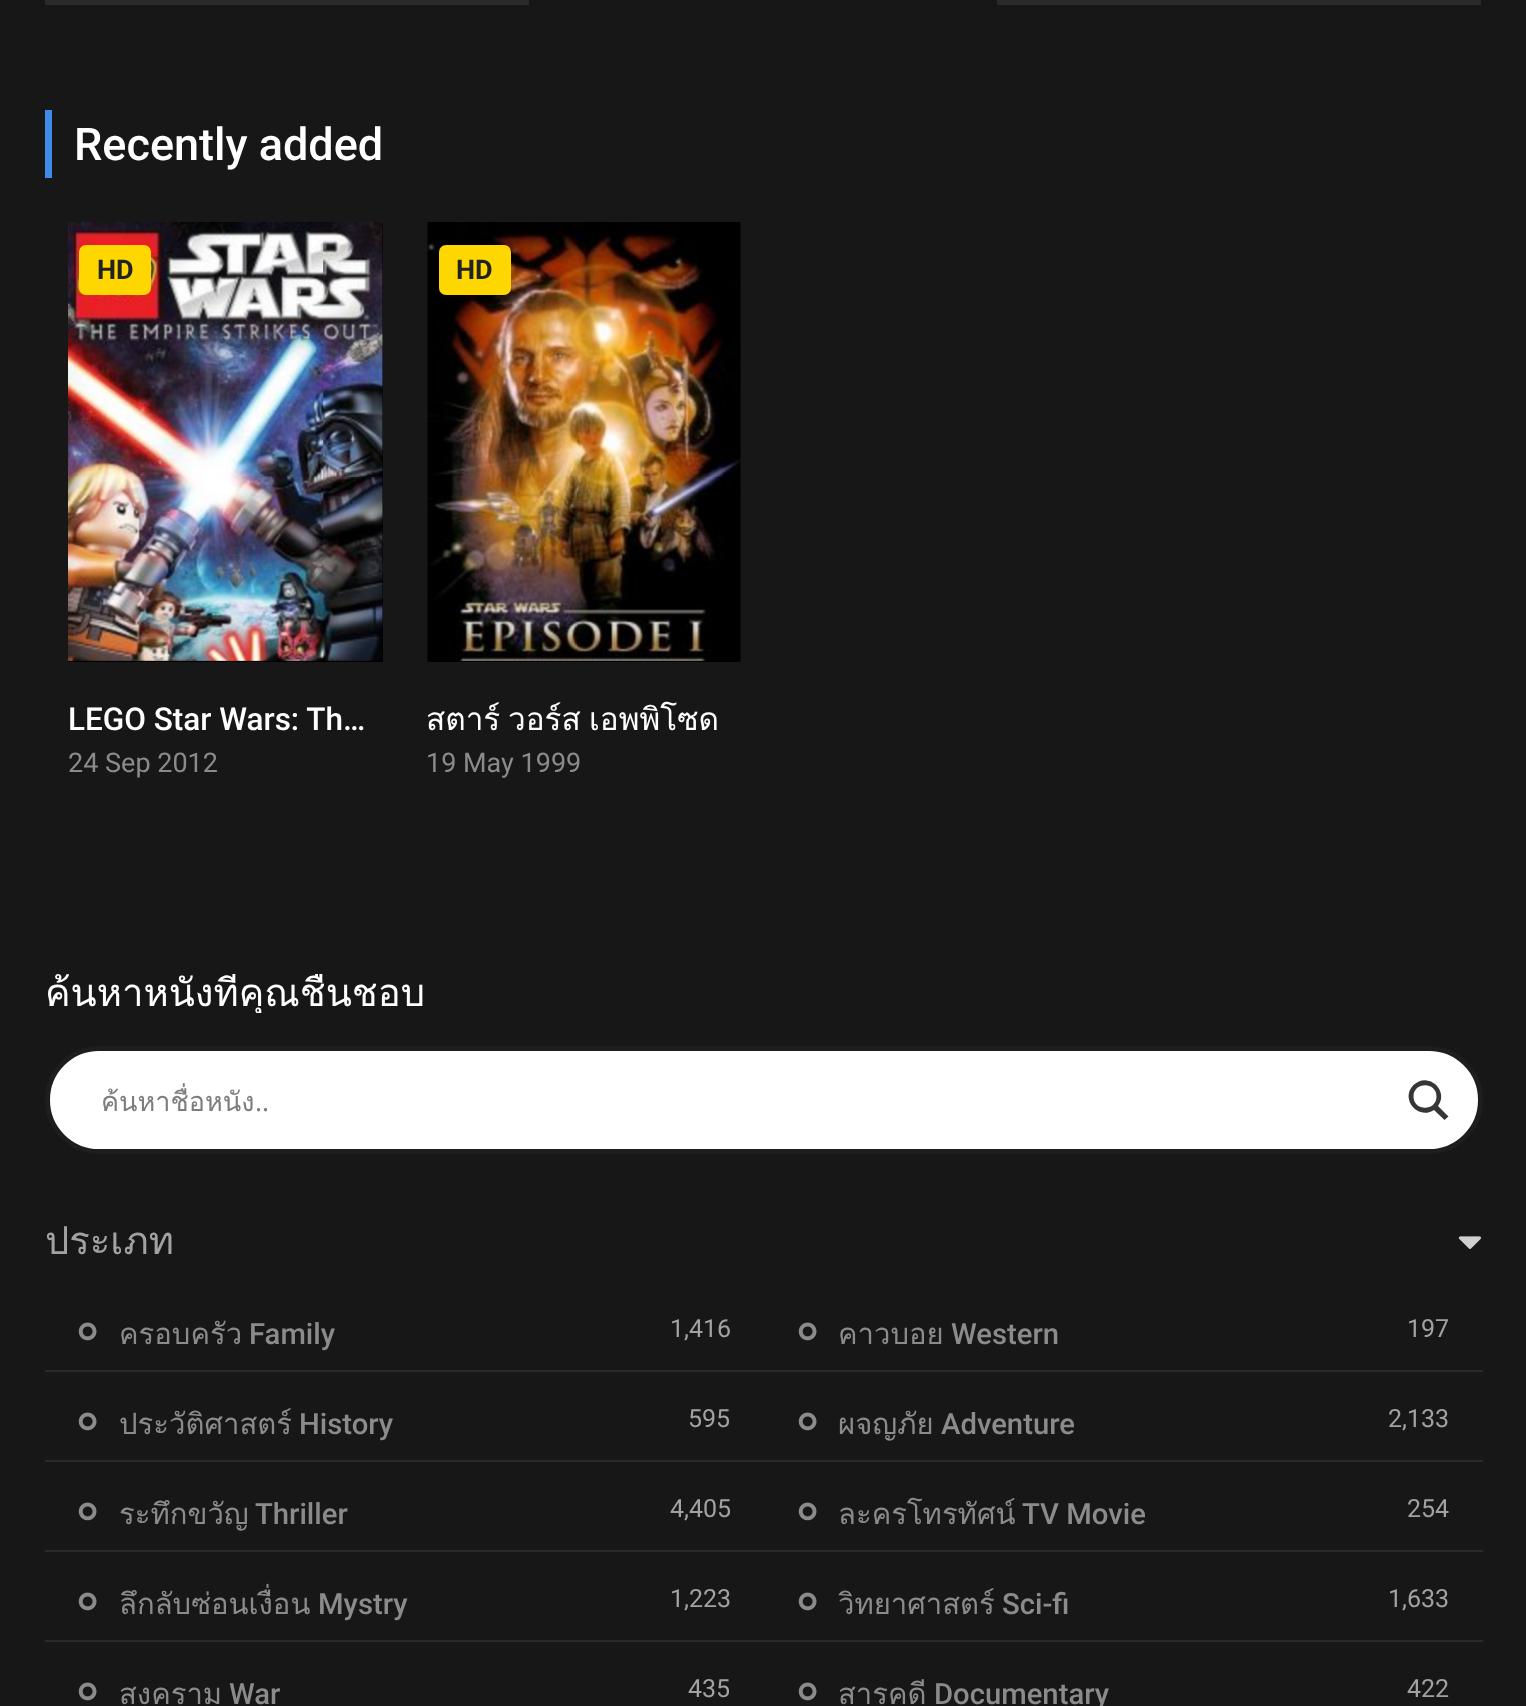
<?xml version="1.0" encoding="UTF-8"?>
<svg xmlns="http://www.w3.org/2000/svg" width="1526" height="1706">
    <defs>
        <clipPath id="clip1"><rect x="45" y="974" width="1438" height="39"/></clipPath>
        <clipPath id="clip2"><rect x="101" y="1080" width="1285" height="43"/></clipPath>
    </defs>
    <rect width="100%" height="100%" fill="#171717"/>
    <rect x="45" y="0" width="484" height="5" fill="#2A2A2A"/>
    <rect x="997" y="0" width="484" height="5" fill="#2A2A2A"/>
    <rect x="45" y="110" width="7" height="68" fill="#408BEA"/>
    <text x="74" y="160" font-family="Roboto" font-size="45" font-weight="500" fill="#FFFFFF">Recently added</text>
    <rect x="68" y="223" width="315" height="439" fill="#000000"/>
    <image x="68" y="222" width="315" height="439" href="img_01.png"/>
    <rect x="79" y="245" width="72" height="50" rx="7" fill="#FED700"/>
    <text x="97" y="279" font-family="Roboto" font-size="27" font-weight="700" fill="#222222">HD</text>
    <text x="68" y="730" font-family="Roboto" font-size="31.5" font-weight="500" fill="#FFFFFF">LEGO Star Wars: Th…</text>
    <text x="68" y="772" font-family="Roboto" font-size="27" fill="#8B8B8B">24 Sep 2012</text>
    <rect x="428" y="223" width="312" height="439" fill="#000000"/>
    <image x="427" y="222" width="314" height="439" href="img_02.png"/>
    <rect x="439" y="245" width="72" height="50" rx="7" fill="#FED700"/>
    <text x="456" y="279" font-family="Roboto" font-size="27" font-weight="700" fill="#222222">HD</text>
    <text x="426" y="730" font-family="Loma" font-size="31.5" fill="#FFFFFF">สตาร์</text>
    <text x="508" y="730" font-family="Loma" font-size="31.5" fill="#FFFFFF">วอร์ส</text>
    <text x="589" y="730" font-family="Loma" font-size="31.5" fill="#FFFFFF">เอพพิโซด</text>
    <text x="426" y="772" font-family="Roboto" font-size="27" fill="#8B8B8B">19 May 1999</text>
    <g clip-path="url(#clip1)">
        <text x="45" y="1006" font-family="Loma" font-size="38.25" fill="#FFFFFF">ค้นหาหนังที่คุณชื่นชอบ</text>
    </g>
    <rect x="47.5" y="1048.5" width="1433" height="103" rx="51.5" fill="#FFFFFF" stroke="#1E1E1E" stroke-width="5"/>
    <g clip-path="url(#clip2)">
        <text x="101" y="1111" font-family="Loma" font-size="27" fill="#7D7D7D">ค้นหาชื่อหนัง</text>
    </g>
    <text x="255" y="1111" font-family="Open Sans" font-size="27" fill="#7D7D7D">..</text>
    <path d="M 1448.5 1116.5 L 1438 1106 C 1449.5 1090.5 1428 1071 1413.5 1085 C 1399.5 1099 1418.5 1120.5 1434 1110 L 1444.5 1120 Z M 1413.5 1096.5 C 1413.5 1081.5 1436.5 1081.5 1436.5 1096.5 C 1436.5 1111.5 1413.5 1111.5 1413.5 1096.5 Z" fill="#363636"/>
    <text x="45" y="1254" font-family="Loma" font-size="38.25" fill="#A2A2A2">ประเภท</text>
    <image x="1458" y="1236" width="23" height="13" href="img_03.png"/>
    <rect x="45" y="1370" width="1438" height="2" fill="#2A2A2A"/>
    <image x="78" y="1322" width="19" height="19" href="img_04.png"/>
    <text x="119" y="1344" font-family="Loma" font-size="29.25" fill="#8B8B8B">ครอบครัว</text>
    <text x="249" y="1344" font-family="Roboto" font-size="29.25" font-weight="500" fill="#8B8B8B">Family</text>
    <text x="670" y="1337" font-family="Roboto" font-size="25" fill="#A2A2A2">1,416</text>
    <image x="798" y="1322" width="19" height="19" href="img_04.png"/>
    <text x="838" y="1344" font-family="Loma" font-size="29.25" fill="#8B8B8B">คาวบอย</text>
    <text x="951" y="1344" font-family="Roboto" font-size="29.25" font-weight="500" fill="#8B8B8B">Western</text>
    <text x="1407" y="1337" font-family="Roboto" font-size="25" fill="#A2A2A2">197</text>
    <rect x="45" y="1460" width="1438" height="2" fill="#2A2A2A"/>
    <image x="78" y="1412" width="19" height="19" href="img_04.png"/>
    <text x="119" y="1434" font-family="Loma" font-size="29.25" fill="#8B8B8B">ประวัติศาสตร์</text>
    <text x="299" y="1434" font-family="Roboto" font-size="29.25" font-weight="500" fill="#8B8B8B">History</text>
    <text x="688" y="1427" font-family="Roboto" font-size="25" fill="#A2A2A2">595</text>
    <image x="798" y="1412" width="19" height="19" href="img_04.png"/>
    <text x="838" y="1434" font-family="Loma" font-size="29.25" fill="#8B8B8B">ผจญภัย</text>
    <text x="941" y="1434" font-family="Roboto" font-size="29.25" font-weight="500" fill="#8B8B8B">Adventure</text>
    <text x="1388" y="1427" font-family="Roboto" font-size="25" fill="#A2A2A2">2,133</text>
    <rect x="45" y="1550" width="1438" height="2" fill="#2A2A2A"/>
    <image x="78" y="1502" width="19" height="19" href="img_04.png"/>
    <text x="119" y="1524" font-family="Loma" font-size="29.25" fill="#8B8B8B">ระทึกขวัญ</text>
    <text x="255" y="1524" font-family="Roboto" font-size="29.25" font-weight="500" fill="#8B8B8B">Thriller</text>
    <text x="670" y="1517" font-family="Roboto" font-size="25" fill="#A2A2A2">4,405</text>
    <image x="798" y="1502" width="19" height="19" href="img_04.png"/>
    <text x="838" y="1524" font-family="Loma" font-size="29.25" fill="#8B8B8B">ละครโทรทัศน์</text>
    <text x="1022" y="1524" font-family="Roboto" font-size="29.25" font-weight="500" fill="#8B8B8B">TV Movie</text>
    <text x="1407" y="1517" font-family="Roboto" font-size="25" fill="#A2A2A2">254</text>
    <rect x="45" y="1640" width="1438" height="2" fill="#2A2A2A"/>
    <image x="78" y="1592" width="19" height="19" href="img_04.png"/>
    <text x="119" y="1614" font-family="Loma" font-size="29.25" fill="#8B8B8B">ลึกลับซ่อนเงื่อน</text>
    <text x="318" y="1614" font-family="Roboto" font-size="29.25" font-weight="500" fill="#8B8B8B">Mystry</text>
    <text x="670" y="1607" font-family="Roboto" font-size="25" fill="#A2A2A2">1,223</text>
    <image x="798" y="1592" width="19" height="19" href="img_04.png"/>
    <text x="838" y="1614" font-family="Loma" font-size="29.25" fill="#8B8B8B">วิทยาศาสตร์</text>
    <text x="1002" y="1614" font-family="Roboto" font-size="29.25" font-weight="500" fill="#8B8B8B">Sci-fi</text>
    <text x="1388" y="1607" font-family="Roboto" font-size="25" fill="#A2A2A2">1,633</text>
    <image x="78" y="1682" width="19" height="19" href="img_04.png"/>
    <text x="119" y="1704" font-family="Loma" font-size="29.25" fill="#8B8B8B">สงคราม</text>
    <text x="229" y="1704" font-family="Roboto" font-size="29.25" font-weight="500" fill="#8B8B8B">War</text>
    <text x="688" y="1697" font-family="Roboto" font-size="25" fill="#A2A2A2">435</text>
    <image x="798" y="1682" width="19" height="19" href="img_04.png"/>
    <text x="838" y="1704" font-family="Loma" font-size="29.25" fill="#8B8B8B">สารคดี</text>
    <text x="934" y="1704" font-family="Roboto" font-size="29.25" font-weight="500" fill="#8B8B8B">Documentary</text>
    <text x="1407" y="1697" font-family="Roboto" font-size="25" fill="#A2A2A2">422</text>
</svg>
